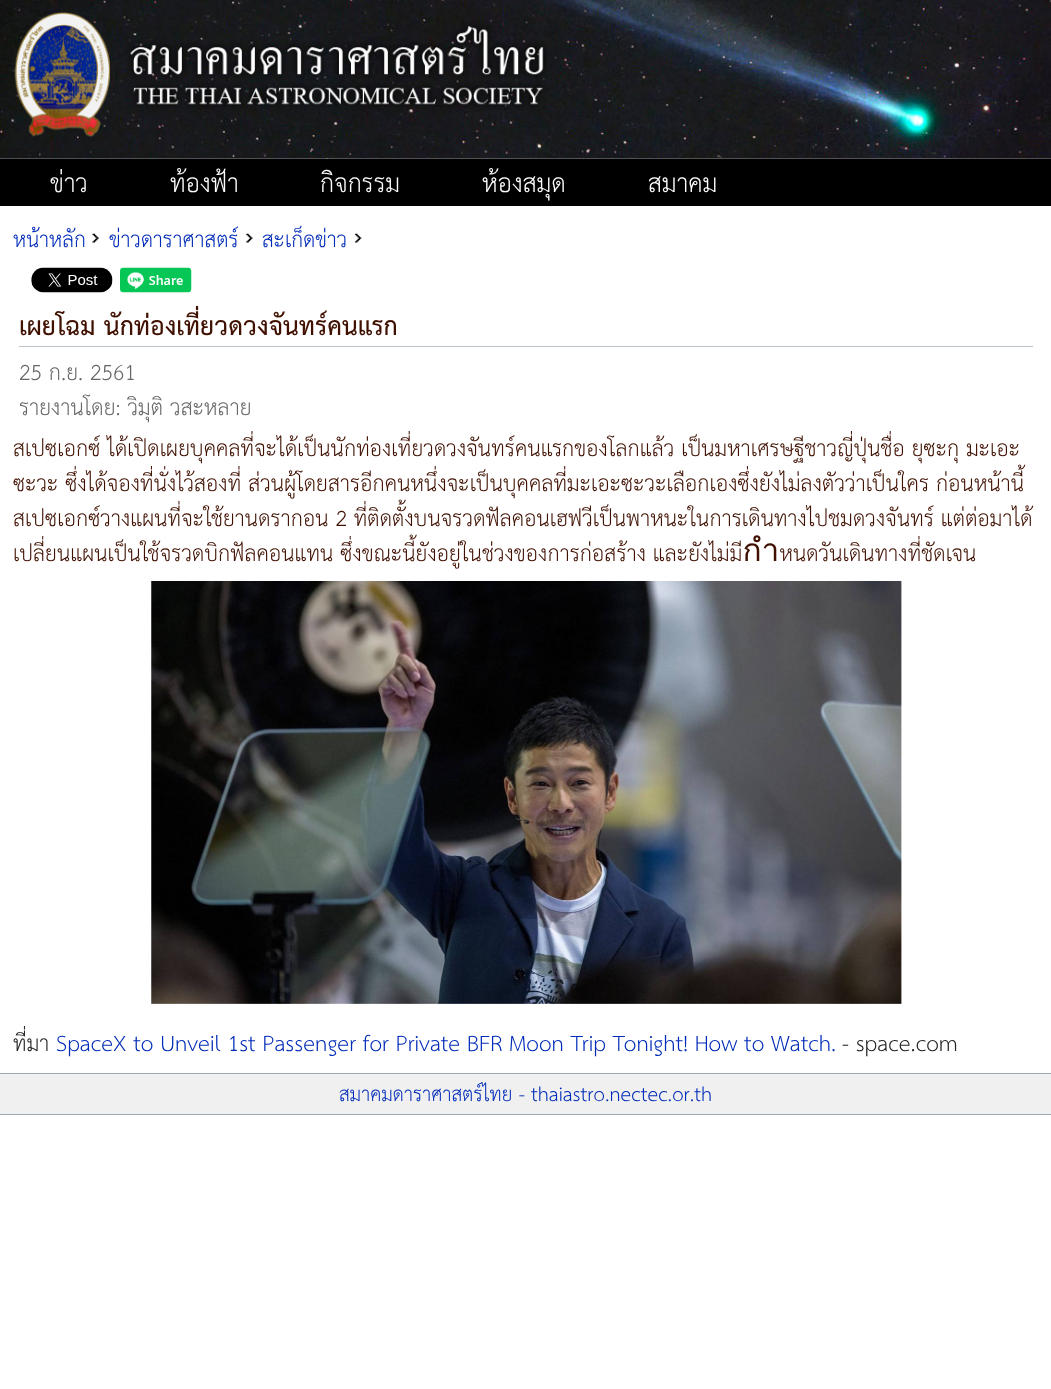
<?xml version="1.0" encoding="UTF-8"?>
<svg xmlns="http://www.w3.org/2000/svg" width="1051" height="1389">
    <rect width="100%" height="100%" fill="#FFFFFF"/>
    <image x="0" y="0" width="1051" height="159" href="img_01.png"/>
    <image x="14" y="12" width="533" height="125" href="img_02.png"/>
    <rect x="0" y="159" width="1051" height="47" fill="#000000"/>
    <text x="50" y="192" font-family="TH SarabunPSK" font-size="36.75" fill="#FFFFFF">ข่าว</text>
    <text x="170" y="192" font-family="TH SarabunPSK" font-size="36.75" fill="#FFFFFF">ท้องฟ้า</text>
    <text x="320" y="192" font-family="TH SarabunPSK" font-size="36.75" fill="#FFFFFF">กิจกรรม</text>
    <text x="482" y="192" font-family="TH SarabunPSK" font-size="36.75" fill="#FFFFFF">ห้องสมุด</text>
    <text x="648" y="192" font-family="TH SarabunPSK" font-size="36.75" fill="#FFFFFF">สมาคม</text>
    <text x="13" y="247" font-family="TH SarabunPSK" font-size="31" fill="#002BB8">หน้าหลัก</text>
    <image x="92" y="233" width="7" height="10" href="img_03.png"/>
    <text x="109" y="247" font-family="TH SarabunPSK" font-size="31" fill="#002BB8">ข่าวดาราศาสตร์</text>
    <image x="246" y="233" width="7" height="10" href="img_04.png"/>
    <text x="262" y="247" font-family="TH SarabunPSK" font-size="31" fill="#002BB8">สะเก็ดข่าว</text>
    <image x="354" y="233" width="8" height="10" href="img_05.png"/>
    <image x="31" y="267" width="82" height="26" href="img_06.png"/>
    <image x="120" y="267" width="72" height="26" href="img_07.png"/>
    <rect x="19" y="346" width="1014" height="1" fill="#BBC3CB"/>
    <text x="19" y="335" font-family="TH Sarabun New" font-size="36.75" font-weight="700" fill="#401000">เผยโฉม นักท่องเที่ยวดวงจันทร์คนแรก</text>
    <text font-family="TH SarabunPSK" font-size="31.7" fill="#676767">
        <tspan x="19" y="380">25 ก.ย. 2561</tspan>
        <tspan x="19" y="415">รายงานโดย: วิมุติ วสะหลาย</tspan>
    </text>
    <text font-family="TH SarabunPSK" font-size="31.7" fill="#401000">
        <tspan x="13" y="456">สเปซเอกซ์ ได้เปิดเผยบุคคลที่จะได้เป็นนักท่องเที่ยวดวงจันทร์คนแรกของโลกแล้ว เป็นมหาเศรษฐีชาวญี่ปุ่นชื่อ ยุซะกุ มะเอะ</tspan>
        <tspan x="13" y="491">ซะวะ ซึ่งได้จองที่นั่งไว้สองที่ ส่วนผู้โดยสารอีกคนหนึ่งจะเป็นบุคคลที่มะเอะซะวะเลือกเองซึ่งยังไม่ลงตัวว่าเป็นใคร ก่อนหน้านี้</tspan>
        <tspan x="13" y="526">สเปซเอกซ์วางแผนที่จะใช้ยานดรากอน 2 ที่ติดตั้งบนจรวดฟัลคอนเฮฟวีเป็นพาหนะในการเดินทางไปชมดวงจันทร์ แต่ต่อมาได้</tspan>
        <tspan x="13" y="561">เปลี่ยนแผนเป็นใช้จรวดบิกฟัลคอนแทน ซึ่งขณะนี้ยังอยู่ในช่วงของการก่อสร้าง และยังไม่มีกำหนดวันเดินทางที่ชัดเจน</tspan>
    </text>
    <image x="151" y="581" width="751" height="423" href="img_08.png"/>
    <text x="13" y="1051" font-family="TH SarabunPSK" font-size="31.7" fill="#222222">ที่มา</text>
    <text x="56" y="1051" font-family="TH SarabunPSK" font-size="31.7" fill="#002BB8">SpaceX to Unveil 1st Passenger for Private BFR Moon Trip Tonight! How to Watch.</text>
    <text x="842" y="1051" font-family="TH SarabunPSK" font-size="31.7" fill="#222222">- space.com</text>
    <rect x="0" y="1074" width="1051" height="40" fill="#F0F0F0"/>
    <rect x="0" y="1073" width="1051" height="1" fill="#9BA9B4"/>
    <rect x="0" y="1114" width="1051" height="1" fill="#9BA9B4"/>
    <text x="339" y="1101" font-family="TH SarabunPSK" font-size="28.5" fill="#002BB8">สมาคมดาราศาสตร์ไทย - thaiastro.nectec.or.th</text>
</svg>
